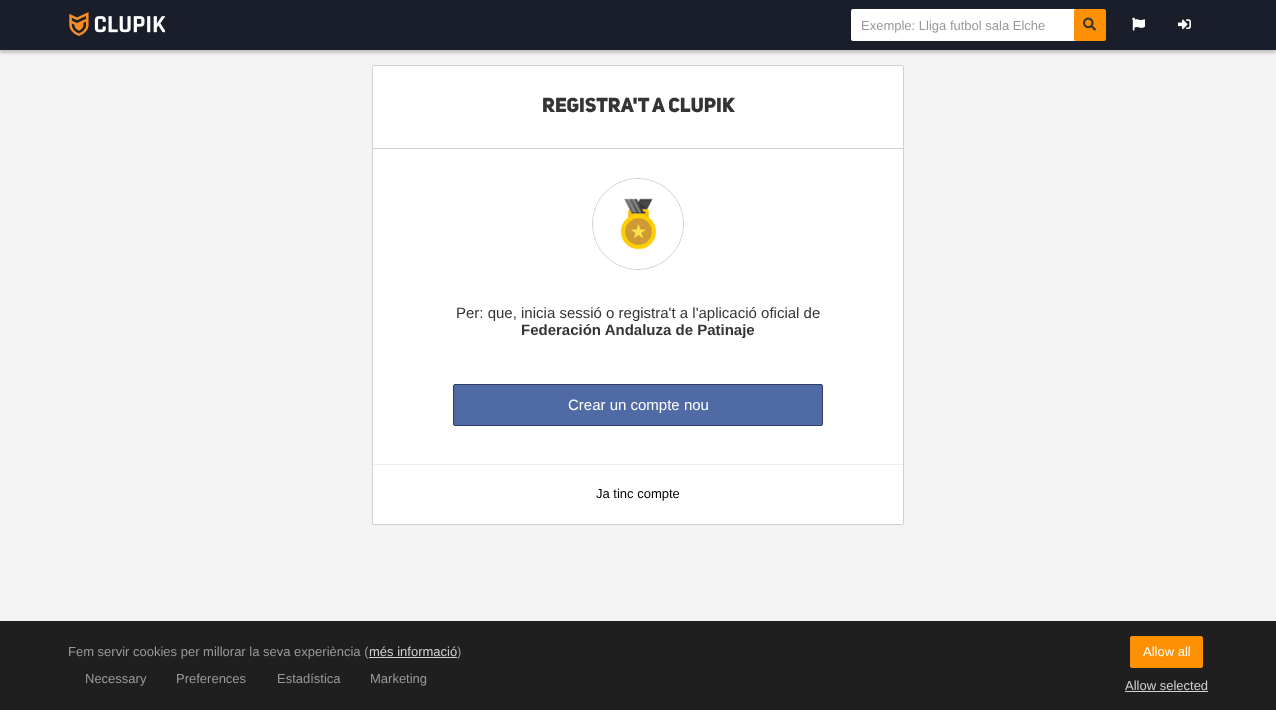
<?xml version="1.0" encoding="UTF-8"?>
<svg xmlns="http://www.w3.org/2000/svg" width="1276" height="710">
    <defs>
        <filter id="blur1" x="-50%" y="-200%" width="200%" height="500%"><feGaussianBlur stdDeviation="1.5"/></filter>
    </defs>
    <rect width="100%" height="100%" fill="#F3F3F3"/>
    <rect x="0" y="3" width="1276" height="50" fill="#000000" fill-opacity="0.2" filter="url(#blur1)"/>
    <rect x="0" y="0" width="1276" height="50" fill="#1A1E2A"/>
    <image x="69" y="12" width="96" height="24" href="img_01.png"/>
    <rect x="851" y="9" width="250" height="32" rx="2" fill="#FFFFFF"/>
    <text x="861" y="30" font-family="Liberation Sans" font-size="13" fill="#999999">Exemple: Lliga futbol sala Elche</text>
    <rect x="1074" y="9" width="32" height="32" rx="2" fill="#FE9003"/>
    <image x="1083" y="17" width="13" height="14" href="img_02.png"/>
    <image x="1132" y="17" width="13" height="14" href="img_03.png"/>
    <image x="1178" y="19" width="13" height="11" href="img_04.png"/>
    <rect x="372.5" y="65.5" width="531" height="459" rx="1.5" fill="#FFFFFF" stroke="#D1D1D1"/>
    <rect x="373" y="148" width="530" height="1" fill="#D1D1D1"/>
    <text x="542" y="112" font-family="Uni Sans" font-size="20" font-weight="900" fill="#343434">Registra't a Clupik</text>
    <circle cx="638" cy="224" r="45.5" fill="none" stroke="#CCCCCC"/>
    <image x="593" y="179" width="90" height="90" href="img_05.png"/>
    <text x="456" y="318" font-family="Liberation Sans" font-size="15" fill="#343434">Per: que, inicia sessió o registra't a l'aplicació oficial de</text>
    <text x="521" y="335" font-family="Liberation Sans" font-size="15" font-weight="700" fill="#343434">Federación Andaluza de Patinaje</text>
    <rect x="453.5" y="384.5" width="369" height="41" rx="1.5" fill="#506AA6" stroke="#2F3E61"/>
    <text x="568" y="410" font-family="Liberation Sans" font-size="15" fill="#FFFFFF">Crear un compte nou</text>
    <path d="M 373 464 L 374 465 H 902 L 903 464 Z" fill="#EEEEEE"/>
    <text x="596" y="498" font-family="Liberation Sans" font-size="13" fill="#000000">Ja tinc compte</text>
    <rect x="0" y="621" width="1276" height="89" fill="#1F1F1F"/>
    <text x="68" y="656" font-family="Liberation Sans" font-size="13" fill="#999999">Fem servir cookies per millorar la seva experiència (</text>
    <text x="369" y="656" font-family="Liberation Sans" font-size="13" fill="#D1D1D1">més informació</text>
    <rect x="369" y="657" width="88" height="1" fill="#D1D1D1"/>
    <text x="457" y="656" font-family="Liberation Sans" font-size="13" fill="#999999">)</text>
    <text x="85" y="683" font-family="Liberation Sans" font-size="13" fill="#999999">Necessary</text>
    <text x="176" y="683" font-family="Liberation Sans" font-size="13" fill="#999999">Preferences</text>
    <text x="277" y="683" font-family="Liberation Sans" font-size="13" fill="#999999">Estadística</text>
    <text x="370" y="683" font-family="Liberation Sans" font-size="13" fill="#999999">Marketing</text>
    <rect x="1130.5" y="636.5" width="72" height="31" rx="1.5" fill="#FE9003" stroke="#FE9003"/>
    <text x="1143" y="656" font-family="Liberation Sans" font-size="13" fill="#FFFFFF">Allow all</text>
    <text x="1125" y="690" font-family="Liberation Sans" font-size="13" fill="#D1D1D1">Allow selected</text>
    <rect x="1125" y="691" width="83" height="1" fill="#D1D1D1"/>
</svg>
